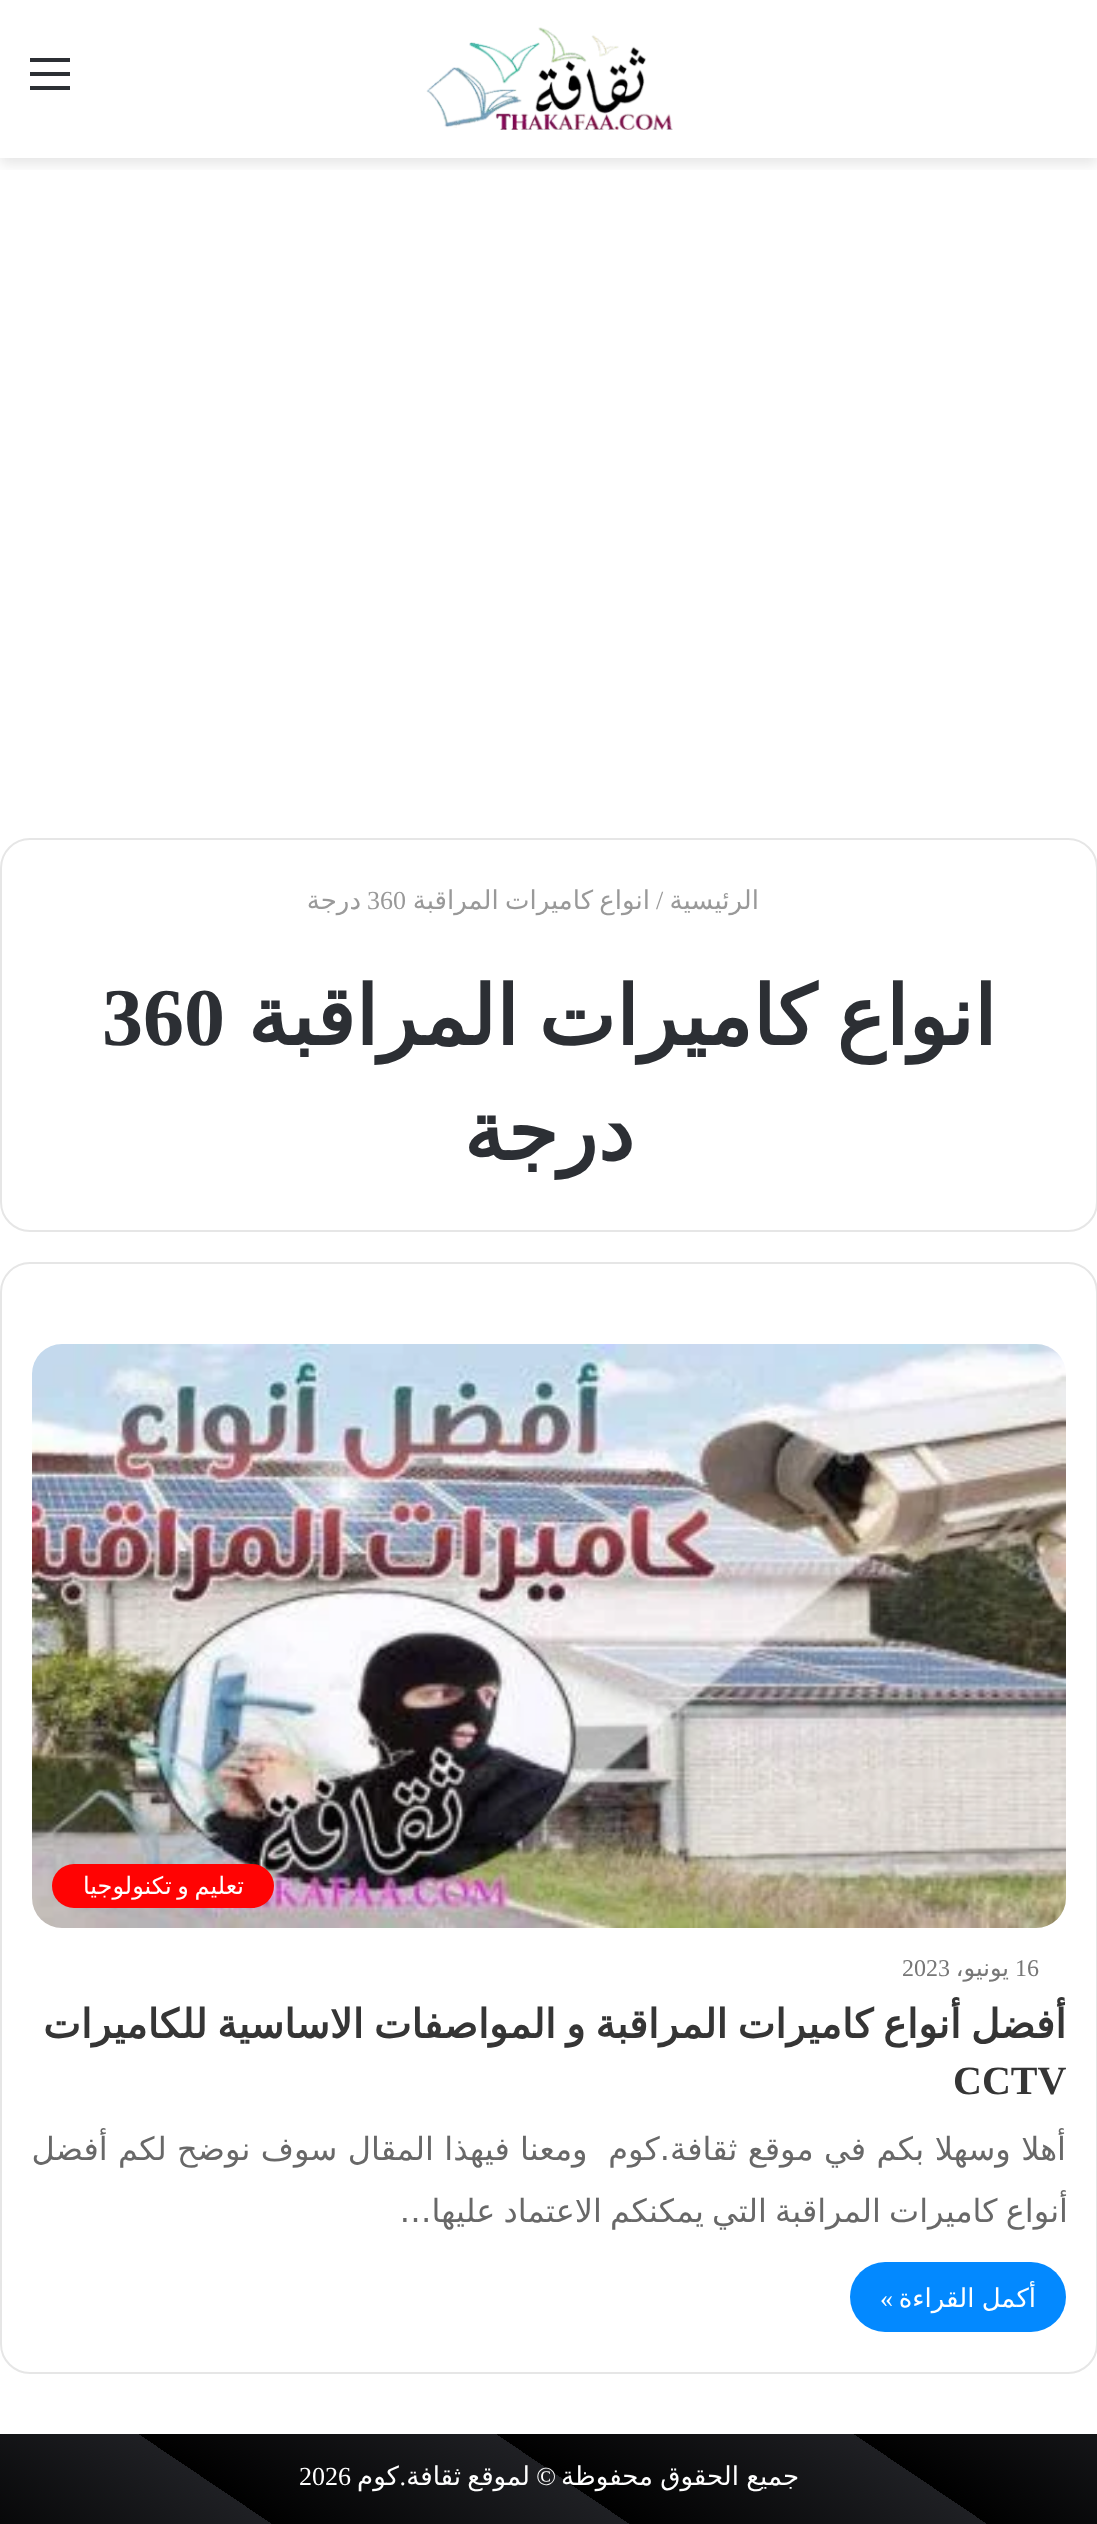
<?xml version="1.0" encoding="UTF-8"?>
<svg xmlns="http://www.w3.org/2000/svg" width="1097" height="2524">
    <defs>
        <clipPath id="clip1"><rect x="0" y="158" width="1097" height="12"/></clipPath>
        <filter id="blur1" x="-50%" y="-200%" width="200%" height="500%"><feGaussianBlur stdDeviation="7"/></filter>
        <linearGradient id="g1" gradientUnits="userSpaceOnUse" x1="343" y1="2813" x2="790" y2="2150"><stop offset="0" stop-color="#000000"/><stop offset="0.25" stop-color="#1F2024"/><stop offset="0.25" stop-color="#000000"/><stop offset="0.5" stop-color="#1F2024"/><stop offset="0.5" stop-color="#000000"/><stop offset="0.75" stop-color="#1F2024"/><stop offset="0.75" stop-color="#000000"/><stop offset="1" stop-color="#1F2024"/></linearGradient>
    </defs>
    <rect width="100%" height="100%" fill="#FFFFFF"/>
    <g clip-path="url(#clip1)">
        <rect x="0" y="-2" width="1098" height="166" fill="#000000" fill-opacity="0.1" filter="url(#blur1)"/>
    </g>
    <image x="426" y="27" width="247" height="103" href="img_01.png"/>
    <rect x="30" y="72" width="40" height="4" fill="#2C2F34"/>
    <rect x="30" y="58" width="40" height="4" fill="#2C2F34"/>
    <rect x="30" y="86" width="40" height="4" fill="#2C2F34"/>
    <rect x="1" y="839" width="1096" height="392" rx="29" fill="none" stroke="#E6E6E6" stroke-width="2"/>
    <text x="759" y="909" font-family="DejaVu Sans" font-size="26" direction="rtl" fill="#999999">الرئيسية</text>
    <text x="656" y="909" font-family="Liberation Serif" font-size="26" fill="#999999">/</text>
    <text x="650" y="909" word-spacing="-2" font-family="DejaVu Sans" font-size="26" direction="rtl" fill="#999999">انواع كاميرات المراقبة</text>
    <text x="367" y="909" font-family="Liberation Serif" font-size="26" fill="#999999">360</text>
    <text x="361" y="909" font-family="DejaVu Sans" font-size="26" direction="rtl" fill="#999999">درجة</text>
    <text x="996" y="1045" word-spacing="-6" font-family="DejaVu Sans" font-size="82" font-weight="700" direction="rtl" fill="#2C2F34">انواع كاميرات المراقبة</text>
    <text x="102" y="1045" font-family="Liberation Serif" font-size="82" font-weight="700" fill="#2C2F34">360</text>
    <text x="634" y="1160" font-family="DejaVu Sans" font-size="82" font-weight="700" direction="rtl" fill="#2C2F34">درجة</text>
    <rect x="1" y="1263" width="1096" height="1110" rx="29" fill="none" stroke="#E6E6E6" stroke-width="2"/>
    <image x="32" y="1344" width="1034" height="584" href="img_02.png"/>
    <rect x="52" y="1864" width="222" height="44" rx="22" fill="#FF0303"/>
    <text x="244" y="1894" word-spacing="-2" font-family="DejaVu Sans" font-size="24" direction="rtl" fill="#FFFFFF">تعليم و تكنولوجيا</text>
    <text x="1015" y="1976" font-family="Liberation Serif" font-size="24" fill="#777777">16</text>
    <text x="1009" y="1976" font-family="DejaVu Sans" font-size="24" direction="rtl" fill="#777777">يونيو،</text>
    <text x="902" y="1976" font-family="Liberation Serif" font-size="24" fill="#777777">2023</text>
    <text x="1066" y="2038" word-spacing="-2.75" font-family="DejaVu Sans" font-size="40" font-weight="700" direction="rtl" fill="#353535">أفضل أنواع كاميرات المراقبة و المواصفات الاساسية للكاميرات</text>
    <text x="953" y="2094" font-family="Liberation Serif" font-size="40" font-weight="700" fill="#353535">CCTV</text>
    <text x="1066" y="2160" word-spacing="0.2" font-family="DejaVu Sans" font-size="32" direction="rtl" fill="#686868" xml:space="preserve">أهلا وسهلا بكم في موقع ثقافة.كوم  ومعنا فيهذا المقال سوف نوضح لكم أفضل</text>
    <text x="1068" y="2222" word-spacing="-2" font-family="DejaVu Sans" font-size="32" direction="rtl" fill="#686868">أنواع كاميرات المراقبة التي يمكنكم الاعتماد عليها…</text>
    <rect x="850" y="2262" width="216" height="70" rx="35" fill="#0389FF"/>
    <text x="1036" y="2307" word-spacing="-1" font-family="DejaVu Sans" font-size="26" direction="rtl" fill="#FFFFFF">أكمل القراءة</text>
    <text x="893" y="2307" font-family="Liberation Serif" font-size="26" direction="rtl" fill="#FFFFFF">»</text>
    <rect x="0" y="2434" width="1097" height="90" fill="url(#g1)"/>
    <text x="799" y="2485" word-spacing="-1" font-family="DejaVu Sans" font-size="26" direction="rtl" fill="#FFFFFF">جميع الحقوق محفوظة</text>
    <text x="556" y="2485" font-family="Liberation Serif" font-size="26" direction="rtl" fill="#FFFFFF">©</text>
    <text x="530" y="2485" font-family="DejaVu Sans" font-size="26" direction="rtl" fill="#FFFFFF">لموقع</text>
    <text x="461" y="2485" font-family="DejaVu Sans" font-size="26" direction="rtl" fill="#FFFFFF">ثقافة</text>
    <text x="406" y="2485" font-family="Liberation Serif" font-size="26" direction="rtl" fill="#FFFFFF">.</text>
    <text x="399" y="2485" font-family="DejaVu Sans" font-size="26" direction="rtl" fill="#FFFFFF">كوم</text>
    <text x="299" y="2485" font-family="Liberation Serif" font-size="26" fill="#FFFFFF">2026</text>
</svg>
